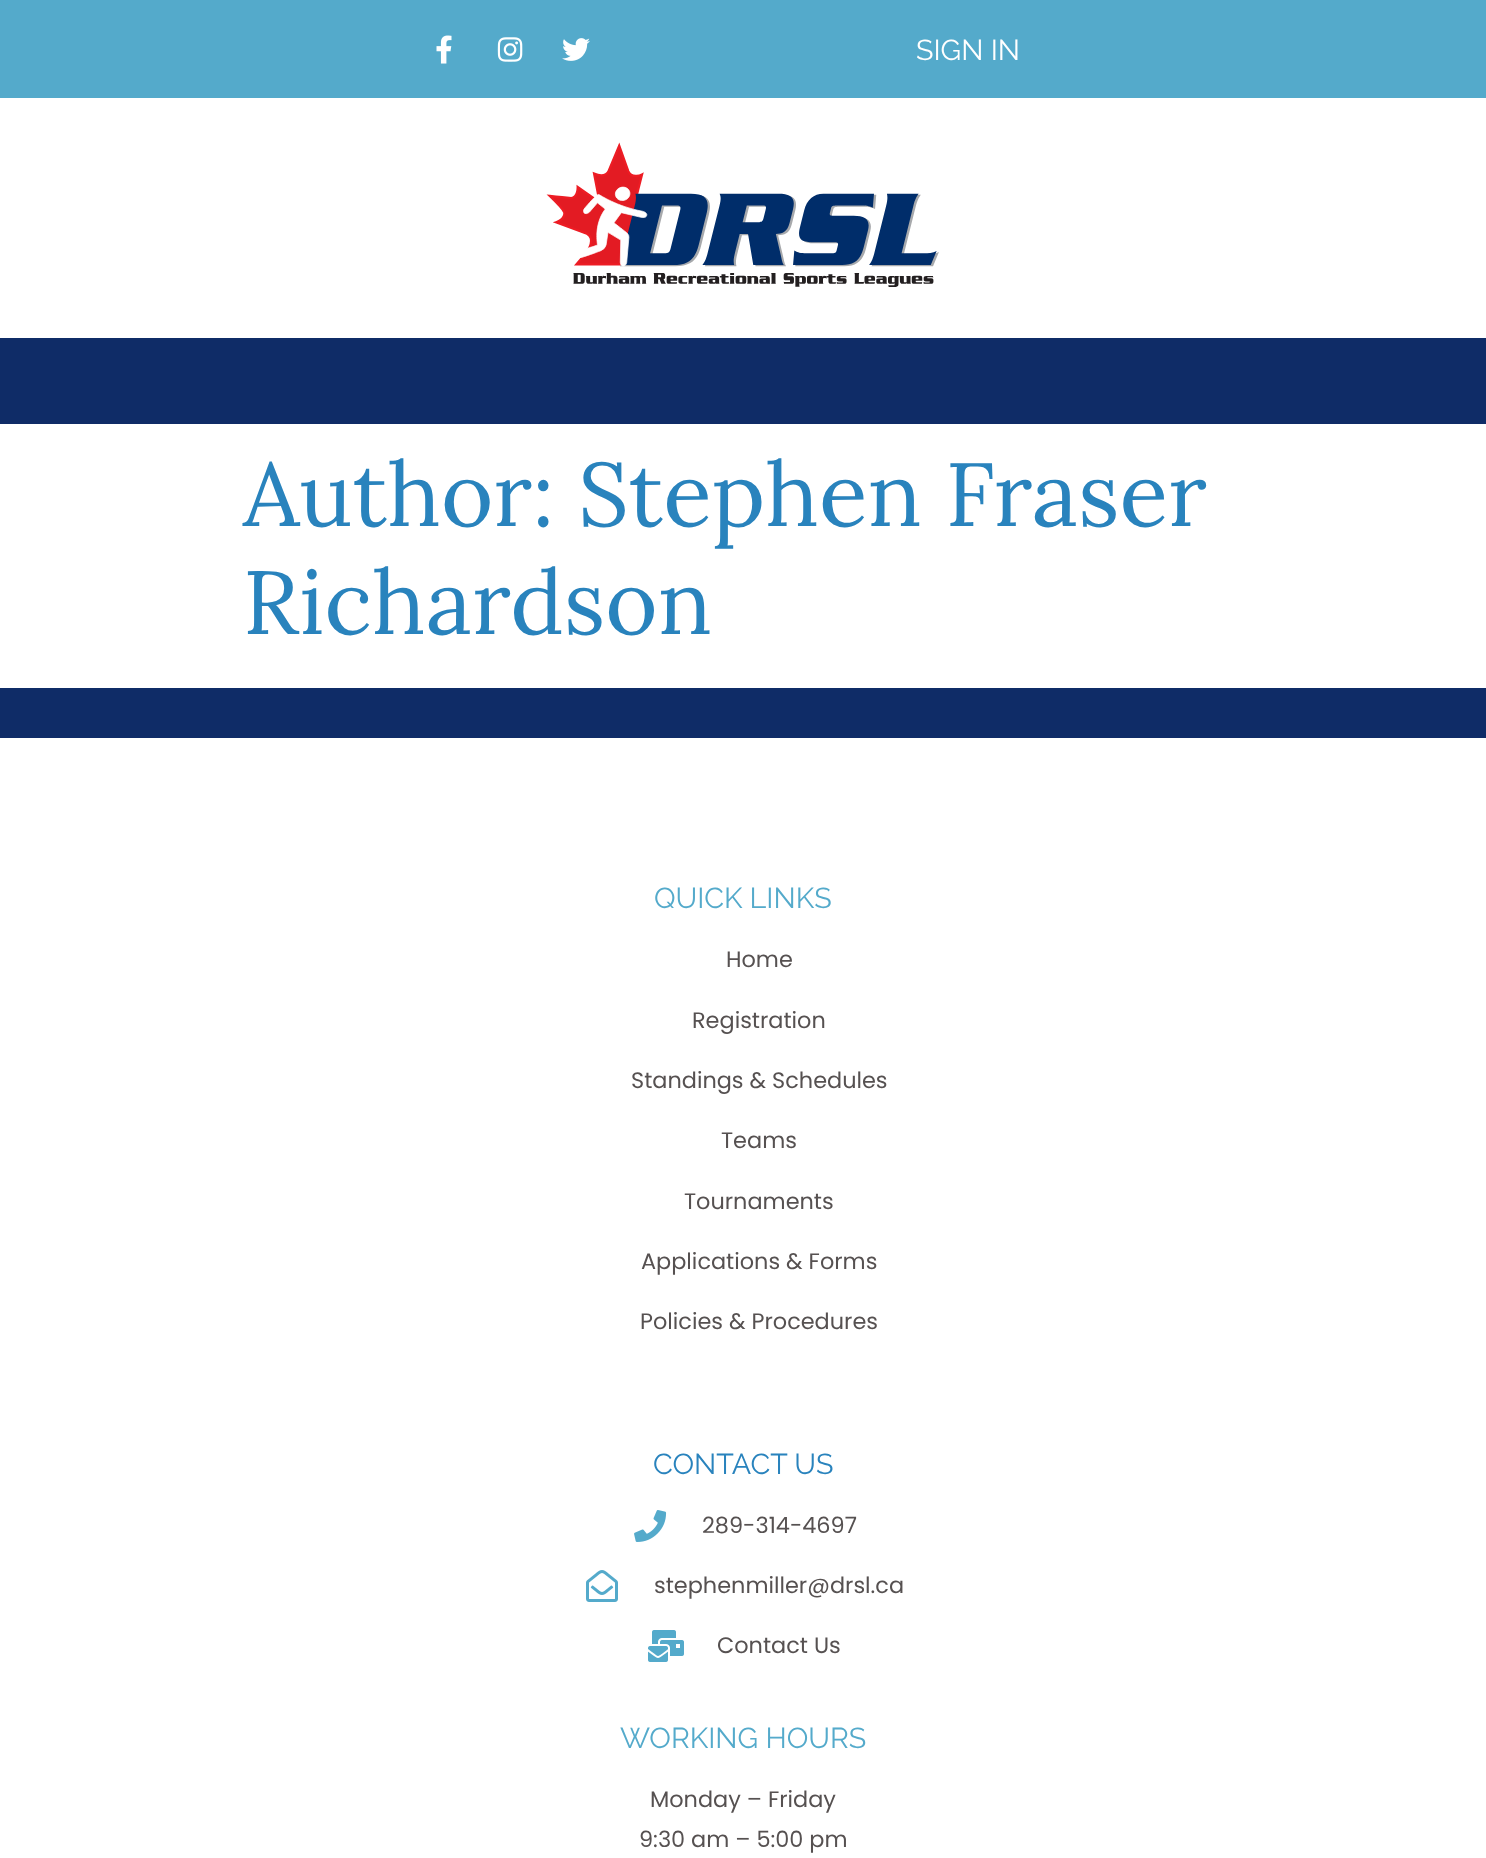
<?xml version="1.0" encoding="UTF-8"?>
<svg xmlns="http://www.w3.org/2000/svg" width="1486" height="1858">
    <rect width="100%" height="100%" fill="#FFFFFF"/>
    <rect x="0" y="0" width="1486" height="98" fill="#54AACB"/>
    <image x="436" y="35" width="16" height="29" href="img_01.png"/>
    <image x="497" y="37" width="26" height="25" href="img_02.png"/>
    <image x="562" y="38" width="28" height="23" href="img_03.png"/>
    <text x="916" y="60" font-family="Raleway" font-size="28.75" fill="#FFFFFF">SIGN IN</text>
    <image x="546" y="142" width="393" height="145" href="img_04.png"/>
    <rect x="0" y="338" width="1486" height="86" fill="#0F2C67"/>
    <text font-family="Lora" font-size="89.6" fill="#2983BD">
        <tspan x="243" y="526">Author: Stephen Fraser</tspan>
        <tspan x="243" y="634">Richardson</tspan>
    </text>
    <rect x="0" y="688" width="1486" height="50" fill="#0F2C67"/>
    <text x="654" y="908" font-family="Raleway" font-size="28.75" fill="#54AACB">QUICK LINKS</text>
    <text x="726" y="967" font-family="Poppins" font-size="22.4" fill="#565151">Home</text>
    <text x="692" y="1028" font-family="Poppins" font-size="22.4" fill="#565151">Registration</text>
    <text x="631" y="1088" font-family="Poppins" font-size="22.4" fill="#565151">Standings &amp; Schedules</text>
    <text x="721" y="1148" font-family="Poppins" font-size="22.4" fill="#565151">Teams</text>
    <text x="684" y="1209" font-family="Poppins" font-size="22.4" fill="#565151">Tournaments</text>
    <text x="641" y="1269" font-family="Poppins" font-size="22.4" fill="#565151">Applications &amp; Forms</text>
    <text x="640" y="1329" font-family="Poppins" font-size="22.4" fill="#565151">Policies &amp; Procedures</text>
    <text x="653" y="1474" font-family="Raleway" font-size="28.75" fill="#2983BD">CONTACT US</text>
    <image x="634" y="1510" width="33" height="32" href="img_05.png"/>
    <text x="702" y="1533" font-family="Poppins" font-size="22.4" fill="#565151">289-314-4697</text>
    <image x="586" y="1570" width="32" height="32" href="img_06.png"/>
    <text x="654" y="1593" font-family="Poppins" font-size="22.4" fill="#565151">stephenmiller@drsl.ca</text>
    <image x="648" y="1630" width="36" height="32" href="img_07.png"/>
    <text x="717" y="1653" font-family="Poppins" font-size="22.4" fill="#565151">Contact Us</text>
    <text x="620" y="1748" font-family="Raleway" font-size="28.75" fill="#54AACB">WORKING HOURS</text>
    <text x="650" y="1807" font-family="Poppins" font-size="22.4" fill="#565151">Monday – Friday</text>
    <text x="639" y="1847" font-family="Poppins" font-size="22.4" fill="#565151">9:30 am – 5:00 pm</text>
</svg>
